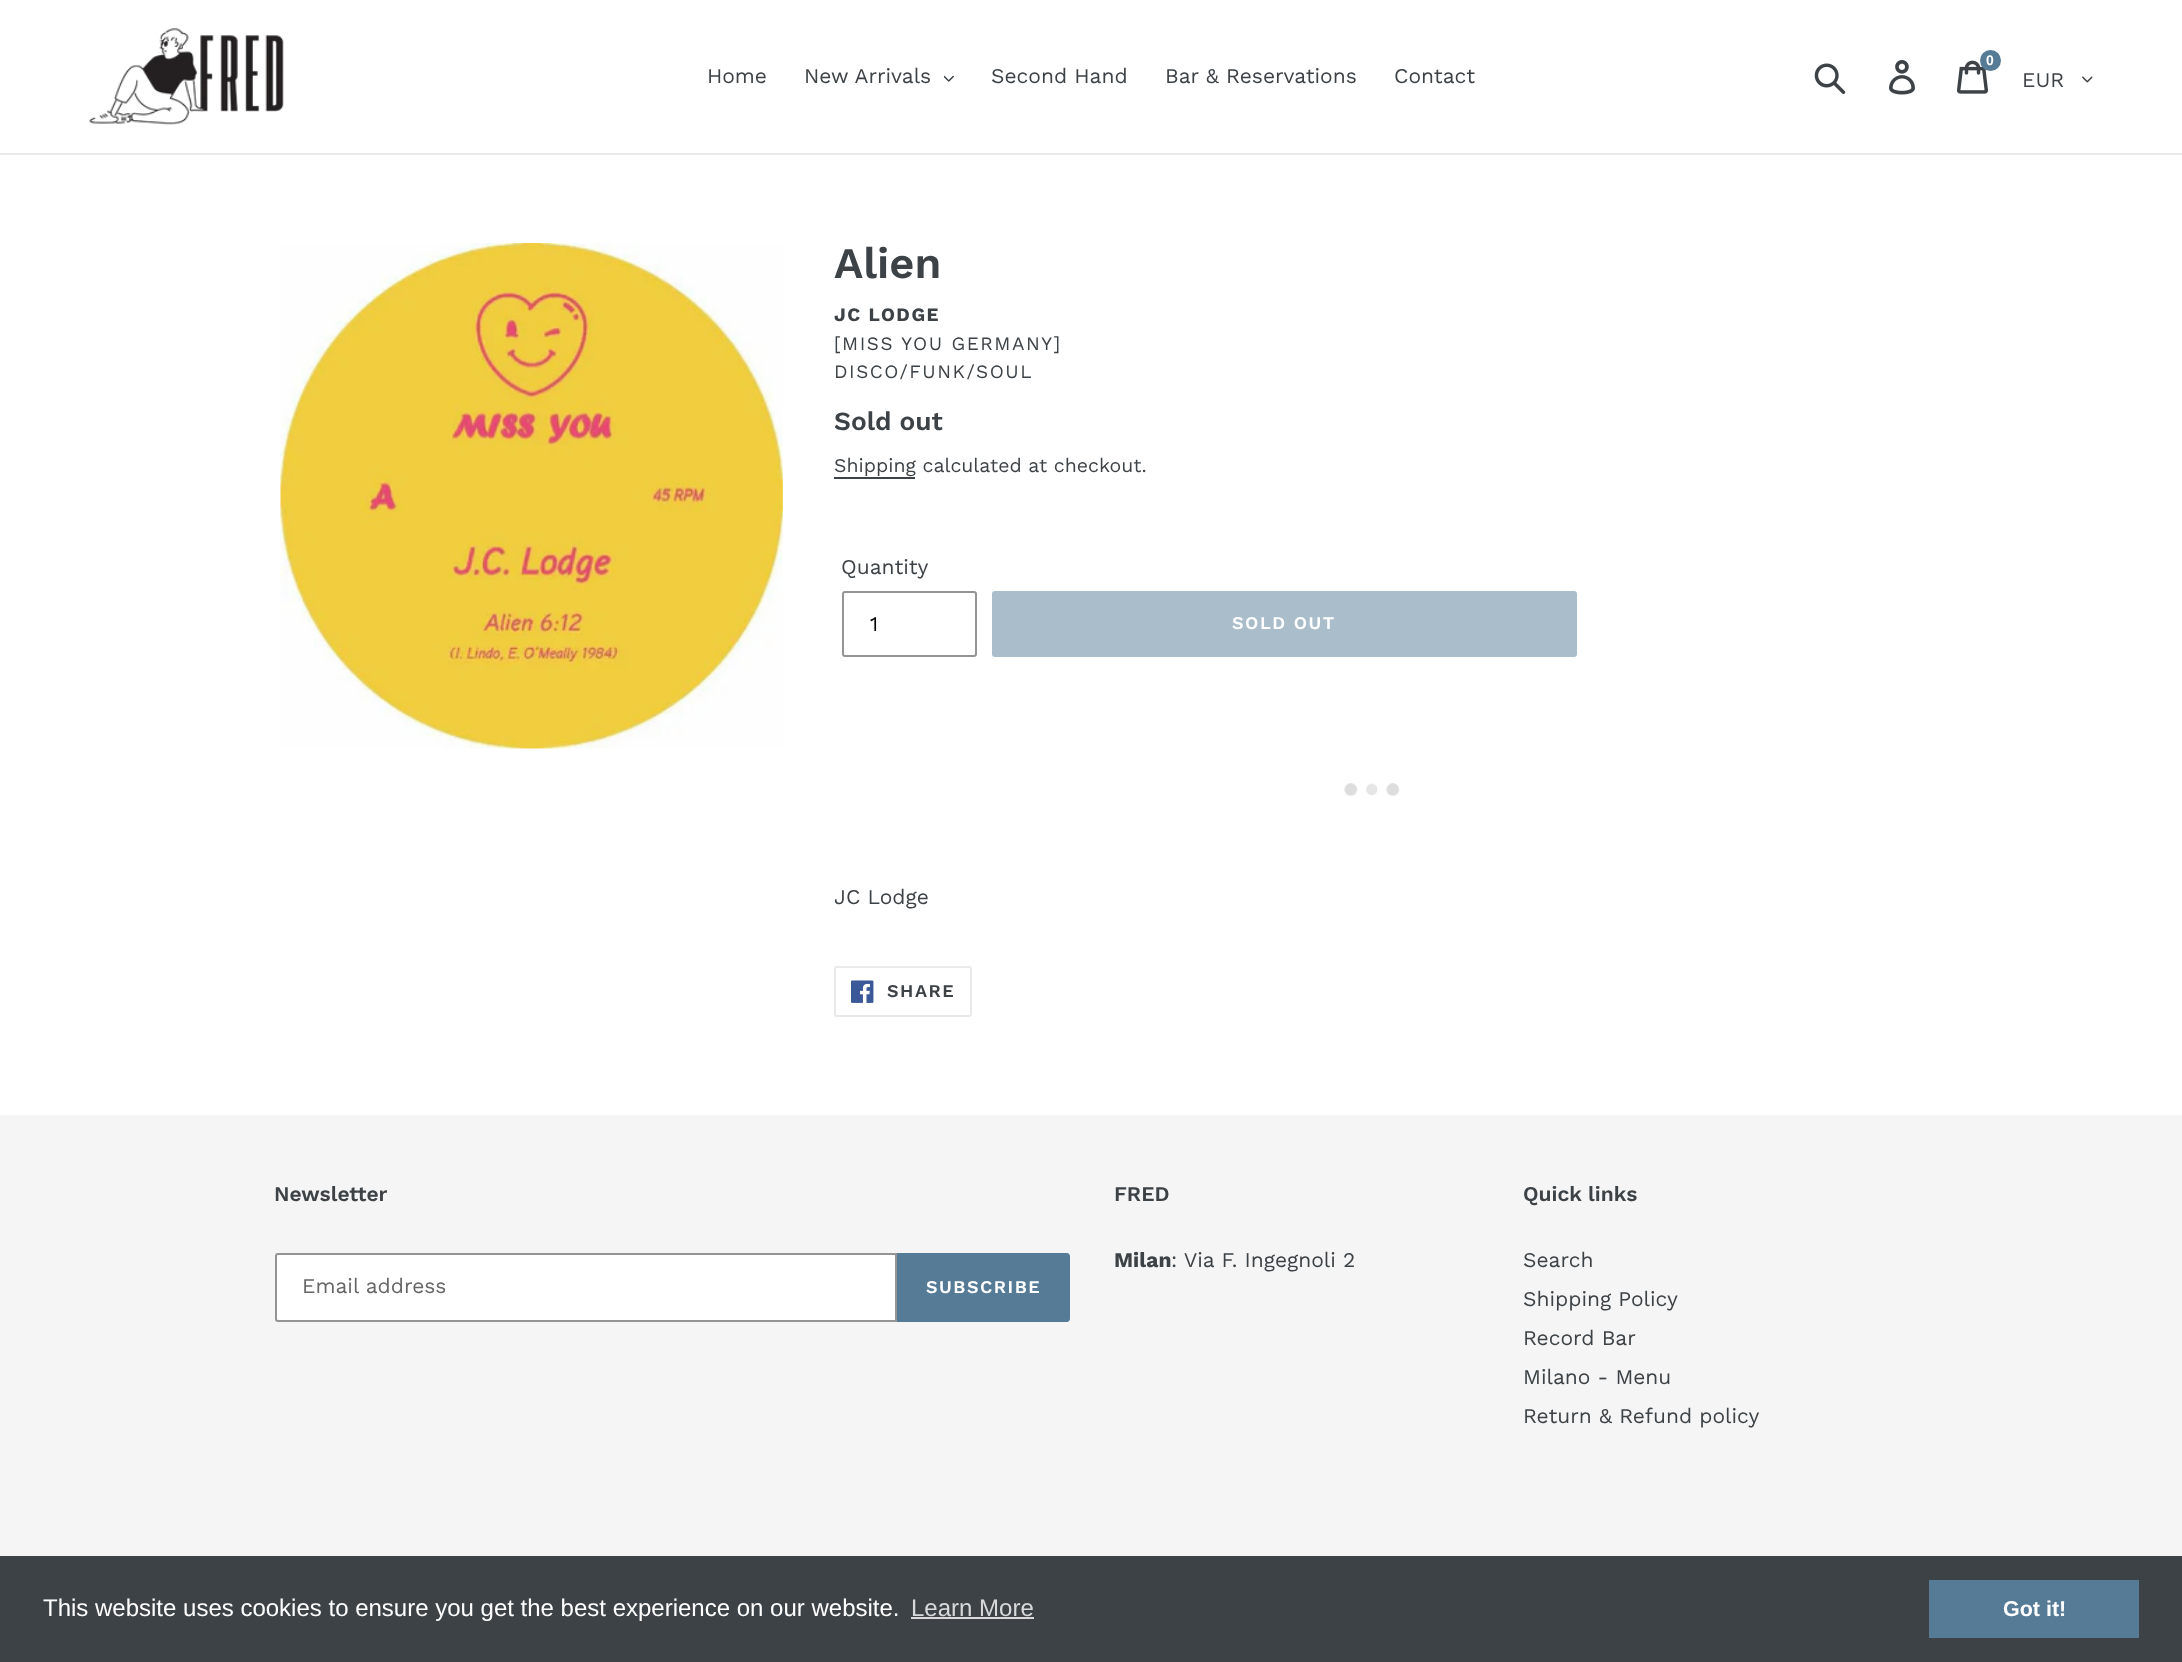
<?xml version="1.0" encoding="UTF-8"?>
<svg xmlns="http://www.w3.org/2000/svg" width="2182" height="1662">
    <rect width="100%" height="100%" fill="#FFFFFF"/>
    <rect x="0" y="153" width="2182" height="2" fill="#E8E9EB"/>
    <image x="89" y="28" width="195" height="97" href="img_01.png"/>
    <text x="707" y="83" font-family="Work Sans" font-size="21" fill="#3D4246">Home</text>
    <text x="804" y="83" font-family="Work Sans" font-size="21" fill="#3D4246">New Arrivals</text>
    <image x="944" y="75" width="10" height="7" href="img_02.png"/>
    <text x="991" y="83" font-family="Work Sans" font-size="21" fill="#3D4246">Second Hand</text>
    <text x="1165" y="83" font-family="Work Sans" font-size="21" fill="#3D4246">Bar &amp; Reservations</text>
    <text x="1394" y="83" font-family="Work Sans" font-size="21" fill="#3D4246">Contact</text>
    <image x="1814" y="63" width="32" height="32" href="img_03.png"/>
    <image x="1889" y="60" width="26" height="35" href="img_04.png"/>
    <image x="1956" y="60" width="32" height="34" href="img_05.png"/>
    <circle cx="1990.5" cy="60.5" r="10.5" fill="#557B97"/>
    <text x="1986" y="65" font-family="Liberation Sans" font-size="14" font-weight="700" fill="#FFFFFF">0</text>
    <text x="2022" y="87" font-family="Work Sans" font-size="21" fill="#3D4246">EUR</text>
    <image x="2082" y="76" width="11" height="7" href="img_06.png"/>
    <image x="280" y="243" width="503" height="506" href="img_07.png"/>
    <text x="834" y="278" font-family="Work Sans" font-size="43.5" font-weight="600" fill="#3D4246">Alien</text>
    <text x="834" y="321" font-family="Work Sans" font-size="18.9" font-weight="700" letter-spacing="1.5" fill="#3D4246">JC LODGE</text>
    <text font-family="Work Sans" font-size="18.9" letter-spacing="1.5" fill="#3D4246">
        <tspan x="834" y="350">[MISS YOU GERMANY]</tspan>
        <tspan x="834" y="378">DISCO/FUNK/SOUL</tspan>
    </text>
    <text x="834" y="430" font-family="Work Sans" font-size="26.25" font-weight="600" fill="#3D4246">Sold out</text>
    <text x="834" y="472" font-family="Work Sans" font-size="19.5" fill="#3D4246">Shipping calculated at checkout.</text>
    <rect x="834" y="477" width="81" height="2" fill="#3D4246"/>
    <text x="841" y="574" font-family="Work Sans" font-size="21" fill="#3D4246">Quantity</text>
    <rect x="843" y="592" width="133" height="64" rx="2" fill="none" stroke="#949494" stroke-width="2"/>
    <text x="870" y="631" font-family="Work Sans" font-size="21" fill="#000000">1</text>
    <rect x="992" y="591" width="585" height="66" rx="3" fill="#AABDCB"/>
    <text x="1232" y="629" font-family="Work Sans" font-size="18" font-weight="600" letter-spacing="1.5" fill="#FFFFFF">SOLD OUT</text>
    <image x="1344" y="783" width="56" height="13" href="img_08.png"/>
    <text x="834" y="904" font-family="Work Sans" font-size="21" fill="#3D4246">JC Lodge</text>
    <rect x="835" y="967" width="136" height="49" rx="2" fill="none" stroke="#E8E9EB" stroke-width="2"/>
    <image x="851" y="980" width="23" height="23" href="img_09.png"/>
    <text x="887" y="997" font-family="Work Sans" font-size="18" font-weight="600" letter-spacing="1.5" fill="#3D4246">SHARE</text>
    <rect x="0" y="1115" width="2182" height="441" fill="#F5F5F5"/>
    <text x="274" y="1201" font-family="Work Sans" font-size="21" font-weight="600" fill="#3D4246">Newsletter</text>
    <path d="M 278 1254 H 896 V 1321 H 278 C 277 1321 276 1320 276 1319 V 1256 C 276 1255 277 1254 278 1254 Z" fill="#FFFFFF" stroke="#949494" stroke-width="2"/>
    <text x="302" y="1293" font-family="Work Sans" font-size="21" fill="#666666">Email address</text>
    <path d="M 897 1253 H 1067 C 1068.5 1253 1070 1254.5 1070 1256 V 1319 C 1070 1320.5 1068.5 1322 1067 1322 H 897 Z" fill="#557B97"/>
    <text x="926" y="1293" font-family="Work Sans" font-size="18" font-weight="600" letter-spacing="1.5" fill="#FFFFFF">SUBSCRIBE</text>
    <text x="1114" y="1201" font-family="Work Sans" font-size="21" font-weight="600" fill="#3D4246">FRED</text>
    <text x="1114" y="1267" font-family="Work Sans" font-size="21" font-weight="700" fill="#3D4246">Milan</text>
    <text x="1171" y="1267" font-family="Work Sans" font-size="21" fill="#3D4246">: Via F. Ingegnoli 2</text>
    <text x="1523" y="1201" font-family="Work Sans" font-size="21" font-weight="600" fill="#3D4246">Quick links</text>
    <text font-family="Work Sans" font-size="21" fill="#3D4246">
        <tspan x="1523" y="1267">Search</tspan>
        <tspan x="1523" y="1306">Shipping Policy</tspan>
        <tspan x="1523" y="1345">Record Bar</tspan>
        <tspan x="1523" y="1384">Milano - Menu</tspan>
        <tspan x="1523" y="1423">Return &amp; Refund policy</tspan>
    </text>
    <rect x="0" y="1556" width="2182" height="106" fill="#3D4246"/>
    <text x="43" y="1616" font-family="Liberation Sans" font-size="24" fill="#FFFFFF">This website uses cookies to ensure you get the best experience on our website.</text>
    <text x="911" y="1616" font-family="Liberation Sans" font-size="24" fill="#D8D9DA">Learn More</text>
    <rect x="911" y="1617" width="123" height="2" fill="#D8D9DA"/>
    <rect x="1929" y="1580" width="210" height="58" fill="#557B97"/>
    <text x="2003" y="1616" font-family="Liberation Sans" font-size="21.5" font-weight="700" fill="#FFFFFF">Got it!</text>
</svg>
